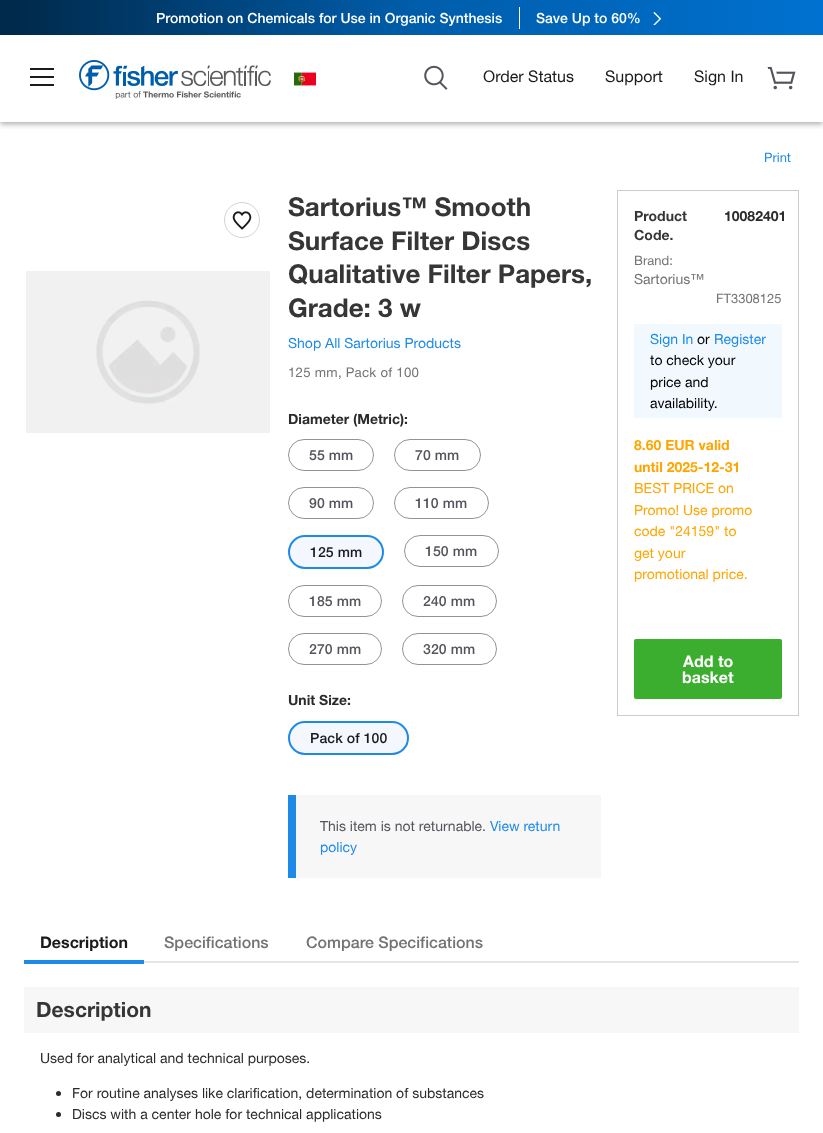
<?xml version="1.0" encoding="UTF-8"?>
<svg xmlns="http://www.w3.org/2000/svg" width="823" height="1133">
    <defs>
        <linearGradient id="g1" gradientUnits="userSpaceOnUse" x1="823" y1="18" x2="0" y2="17"><stop offset="0" stop-color="#0071D0"/><stop offset="0.5" stop-color="#005DAA"/><stop offset="1" stop-color="#002848"/></linearGradient>
        <clipPath id="clip1"><rect x="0" y="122" width="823" height="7"/></clipPath>
        <filter id="blur1" x="-50%" y="-200%" width="200%" height="500%"><feGaussianBlur stdDeviation="2.5"/></filter>
        <clipPath id="clip2"><rect x="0" y="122" width="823" height="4"/></clipPath>
        <filter id="blur2" x="-50%" y="-200%" width="200%" height="500%"><feGaussianBlur stdDeviation="2"/></filter>
    </defs>
    <rect width="100%" height="100%" fill="#FFFFFF"/>
    <rect x="0" y="0" width="823" height="35" fill="url(#g1)"/>
    <text x="156" y="23" font-family="Helvetica Neue" font-size="14" font-weight="500" fill="#FFFFFF">Promotion on Chemicals for Use in Organic Synthesis</text>
    <rect x="519" y="7" width="1" height="22" fill="#FFFFFF"/>
    <text x="536" y="23" font-family="Helvetica Neue" font-size="14" font-weight="500" fill="#FFFFFF">Save Up to 60%</text>
    <image x="653" y="11" width="9" height="14" href="img_01.png"/>
    <g clip-path="url(#clip1)">
        <rect x="0" y="39" width="823" height="87" fill="#000000" fill-opacity="0.14" filter="url(#blur1)"/>
    </g>
    <g clip-path="url(#clip2)">
        <rect x="1" y="38" width="821" height="85" fill="#000000" fill-opacity="0.2" filter="url(#blur2)"/>
    </g>
    <rect x="30" y="76" width="24" height="2" fill="#1B1B1D"/>
    <rect x="30" y="68" width="24" height="2" fill="#1B1B1D"/>
    <rect x="30" y="84" width="24" height="2" fill="#1B1B1D"/>
    <image x="79" y="60" width="192" height="39" href="img_02.png"/>
    <image x="294" y="72" width="22" height="14" href="img_03.png"/>
    <image x="424" y="65" width="24" height="25" href="img_04.png"/>
    <text x="483" y="82" font-family="Helvetica Neue" font-size="16" fill="#1B1B1D">Order Status</text>
    <text x="605" y="82" font-family="Helvetica Neue" font-size="16" fill="#1B1B1D">Support</text>
    <text x="694" y="82" font-family="Helvetica Neue" font-size="16" fill="#1B1B1D">Sign In</text>
    <image x="767" y="66" width="29" height="24" href="img_05.png"/>
    <text x="764" y="162" font-family="Helvetica Neue" font-size="13" fill="#1E8AE7">Print</text>
    <circle cx="242" cy="220" r="17.5" fill="none" stroke="#D3D3D3"/>
    <image x="232" y="211" width="20" height="19" href="img_06.png"/>
    <image x="26" y="271" width="244" height="162" href="img_07.png"/>
    <text font-family="Helvetica Neue" font-size="26" font-weight="700" fill="#363636">
        <tspan x="288" y="216">Sartorius™ Smooth</tspan>
        <tspan x="288" y="250">Surface Filter Discs</tspan>
        <tspan x="288" y="283">Qualitative Filter Papers,</tspan>
        <tspan x="288" y="317">Grade: 3 w</tspan>
    </text>
    <text x="288" y="348" font-family="Helvetica Neue" font-size="14" fill="#1E8AE7">Shop All Sartorius Products</text>
    <text x="288" y="377" font-family="Helvetica Neue" font-size="13.25" letter-spacing="0.25" fill="#737373">125 mm, Pack of 100</text>
    <text x="288" y="424" font-family="Helvetica Neue" font-size="14" font-weight="700" fill="#2B2B2B">Diameter (Metric):</text>
    <rect x="288.5" y="439.5" width="85" height="31" rx="15.5" fill="none" stroke="#92929E"/>
    <text x="309" y="460" font-family="Helvetica Neue" font-size="14" font-weight="500" letter-spacing="0.1" fill="#54545C">55 mm</text>
    <rect x="394.5" y="439.5" width="86" height="31" rx="15.5" fill="none" stroke="#92929E"/>
    <text x="415" y="460" font-family="Helvetica Neue" font-size="14" font-weight="500" letter-spacing="0.1" fill="#54545C">70 mm</text>
    <rect x="288.5" y="487.5" width="85" height="31" rx="15.5" fill="none" stroke="#92929E"/>
    <text x="309" y="508" font-family="Helvetica Neue" font-size="14" font-weight="500" letter-spacing="0.1" fill="#54545C">90 mm</text>
    <rect x="394.5" y="487.5" width="94" height="31" rx="15.5" fill="none" stroke="#92929E"/>
    <text x="415" y="508" font-family="Helvetica Neue" font-size="14" font-weight="500" letter-spacing="0.1" fill="#54545C">110 mm</text>
    <rect x="289" y="536" width="94" height="32" rx="16" fill="#F5F7FF" stroke="#1E8AE7" stroke-width="2"/>
    <text x="310" y="557" font-family="Helvetica Neue" font-size="14" font-weight="500" letter-spacing="0.1" fill="#1B1B1D">125 mm</text>
    <rect x="404.5" y="535.5" width="94" height="31" rx="15.5" fill="none" stroke="#92929E"/>
    <text x="425" y="556" font-family="Helvetica Neue" font-size="14" font-weight="500" letter-spacing="0.1" fill="#54545C">150 mm</text>
    <rect x="288.5" y="585.5" width="93" height="31" rx="15.5" fill="none" stroke="#92929E"/>
    <text x="309" y="606" font-family="Helvetica Neue" font-size="14" font-weight="500" letter-spacing="0.1" fill="#54545C">185 mm</text>
    <rect x="402.5" y="585.5" width="94" height="31" rx="15.5" fill="none" stroke="#92929E"/>
    <text x="423" y="606" font-family="Helvetica Neue" font-size="14" font-weight="500" letter-spacing="0.1" fill="#54545C">240 mm</text>
    <rect x="288.5" y="633.5" width="93" height="31" rx="15.5" fill="none" stroke="#92929E"/>
    <text x="309" y="654" font-family="Helvetica Neue" font-size="14" font-weight="500" letter-spacing="0.1" fill="#54545C">270 mm</text>
    <rect x="402.5" y="633.5" width="94" height="31" rx="15.5" fill="none" stroke="#92929E"/>
    <text x="423" y="654" font-family="Helvetica Neue" font-size="14" font-weight="500" letter-spacing="0.1" fill="#54545C">320 mm</text>
    <text x="288" y="705" font-family="Helvetica Neue" font-size="14" font-weight="700" fill="#2B2B2B">Unit Size:</text>
    <rect x="289" y="722" width="119" height="32" rx="16" fill="#F5F7FF" stroke="#1E8AE7" stroke-width="2"/>
    <text x="310" y="743" font-family="Helvetica Neue" font-size="14" font-weight="500" letter-spacing="0.1" fill="#1B1B1D">Pack of 100</text>
    <rect x="296" y="795" width="305" height="83" fill="#F7F7F7"/>
    <rect x="288" y="795" width="8" height="83" fill="#1E8AE7"/>
    <text x="320" y="831" font-family="Helvetica Neue" font-size="14" fill="#54545C">This item is not returnable.</text>
    <text x="490" y="831" font-family="Helvetica Neue" font-size="14" fill="#1E8AE7">View return</text>
    <text x="320" y="852" font-family="Helvetica Neue" font-size="14" fill="#1E8AE7">policy</text>
    <rect x="617.5" y="190.5" width="181" height="525" fill="none" stroke="#CCCCCC"/>
    <text font-family="Helvetica Neue" font-size="14" font-weight="700" fill="#363636">
        <tspan x="634" y="221">Product</tspan>
        <tspan x="634" y="240">Code.</tspan>
    </text>
    <text x="724" y="221" font-family="Helvetica Neue" font-size="14" font-weight="700" fill="#2B2B2B">10082401</text>
    <text x="634" y="265" font-family="Helvetica Neue" font-size="13" fill="#737373">Brand:</text>
    <text x="634" y="284" font-family="Helvetica Neue" font-size="14" fill="#737373">Sartorius™</text>
    <text x="716" y="303" font-family="Helvetica Neue" font-size="13" fill="#737373">FT3308125</text>
    <rect x="634" y="324" width="148" height="94" fill="#F1F9FF"/>
    <text x="650" y="344" font-family="Helvetica Neue" font-size="14" fill="#1E8AE7">Sign In</text>
    <text x="697" y="344" font-family="Helvetica Neue" font-size="14" fill="#000000">or</text>
    <text x="714" y="344" font-family="Helvetica Neue" font-size="14" fill="#1E8AE7">Register</text>
    <text font-family="Helvetica Neue" font-size="14" fill="#000000">
        <tspan x="650" y="365">to check your</tspan>
        <tspan x="650" y="387">price and</tspan>
        <tspan x="650" y="408">availability.</tspan>
    </text>
    <text font-family="Helvetica Neue" font-size="14" font-weight="700" fill="#FFA500">
        <tspan x="634" y="450">8.60 EUR valid</tspan>
        <tspan x="634" y="472">until 2025-12-31</tspan>
    </text>
    <text font-family="Helvetica Neue" font-size="14" fill="#FFA500">
        <tspan x="634" y="493">BEST PRICE on</tspan>
        <tspan x="634" y="515">Promo! Use promo</tspan>
        <tspan x="634" y="536">code "24159" to</tspan>
        <tspan x="634" y="558">get your</tspan>
        <tspan x="634" y="579">promotional price.</tspan>
    </text>
    <rect x="634" y="639" width="148" height="60" rx="2" fill="#3BAD2F"/>
    <text x="683" y="667" font-family="Helvetica Neue" font-size="16" font-weight="700" fill="#FFFFFF">Add to</text>
    <text x="682" y="683" font-family="Helvetica Neue" font-size="16" font-weight="700" fill="#FFFFFF">basket</text>
    <rect x="144" y="961" width="655" height="2" fill="#E5E5E5"/>
    <rect x="24" y="960" width="120" height="4" fill="#1E8AE7"/>
    <text x="40" y="948" font-family="Helvetica Neue" font-size="16" font-weight="700" fill="#1B1B1D">Description</text>
    <text x="164" y="948" font-family="Helvetica Neue" font-size="16" font-weight="500" fill="#737373">Specifications</text>
    <text x="306" y="948" font-family="Helvetica Neue" font-size="16" font-weight="500" fill="#737373">Compare Specifications</text>
    <rect x="24" y="987" width="775" height="46" fill="#F7F7F7"/>
    <text x="36" y="1017" font-family="Helvetica Neue" font-size="21" font-weight="700" fill="#363636">Description</text>
    <text x="40" y="1063" font-family="Helvetica Neue" font-size="14" fill="#2B2B2B">Used for analytical and technical purposes.</text>
    <circle cx="58.5" cy="1093.5" r="2.5" fill="#2B2B2B"/>
    <text x="72" y="1098" font-family="Helvetica Neue" font-size="14" fill="#2B2B2B">For routine analyses like clarification, determination of substances</text>
    <circle cx="58.5" cy="1114.5" r="2.5" fill="#2B2B2B"/>
    <text x="72" y="1119" font-family="Helvetica Neue" font-size="14" fill="#2B2B2B">Discs with a center hole for technical applications</text>
</svg>
